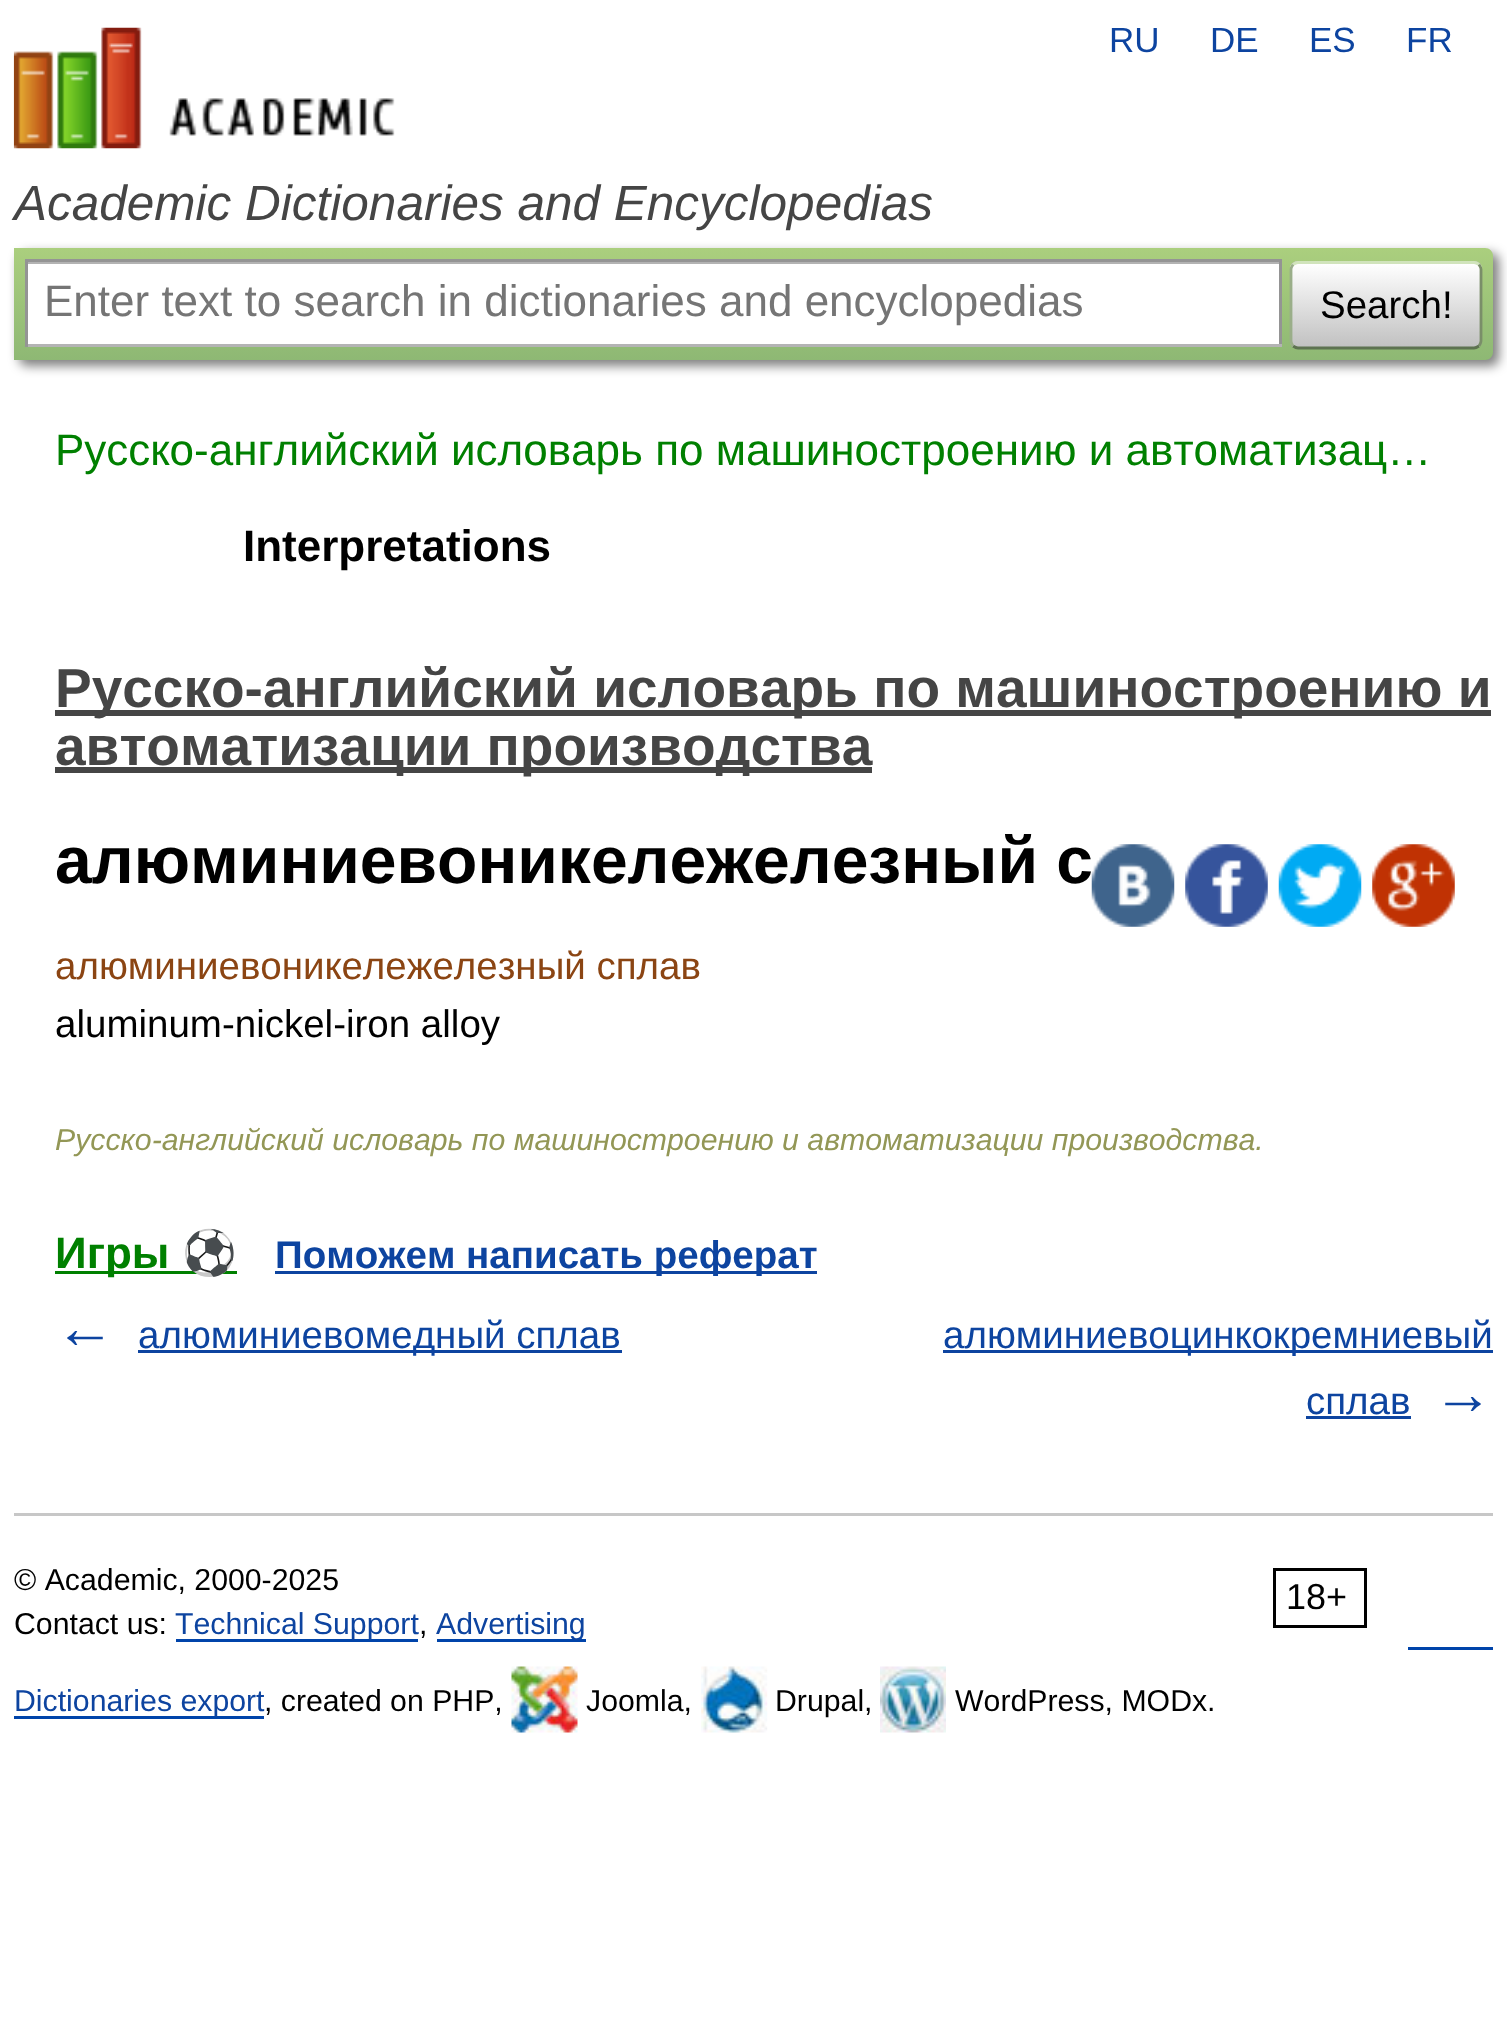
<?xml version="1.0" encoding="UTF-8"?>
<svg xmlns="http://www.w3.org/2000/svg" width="1507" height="2021">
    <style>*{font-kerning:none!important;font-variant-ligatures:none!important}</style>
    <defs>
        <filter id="blur1" x="-50%" y="-200%" width="200%" height="500%"><feGaussianBlur stdDeviation="5.5"/></filter>
        <linearGradient id="g1" gradientUnits="userSpaceOnUse" x1="754" y1="247" x2="754" y2="360"><stop offset="0" stop-color="#ABCF7E"/><stop offset="1" stop-color="#8EB874"/></linearGradient>
        <clipPath id="clip1"><rect x="1290" y="261" width="192" height="88" rx="8"/></clipPath>
        <linearGradient id="g2" gradientUnits="userSpaceOnUse" x1="1386" y1="182" x2="1386" y2="264"><stop offset="0" stop-color="#FFFFFF"/><stop offset="1" stop-color="#C1C1C1"/></linearGradient>
        <linearGradient id="g3" gradientUnits="userSpaceOnUse" x1="1386" y1="264" x2="1386" y2="347"><stop offset="0" stop-color="#FFFFFF"/><stop offset="1" stop-color="#C1C1C1"/></linearGradient>
    </defs>
    <rect width="100%" height="100%" fill="#FFFFFF"/>
    <image x="13" y="27" width="382" height="122" href="img_01.png"/>
    <text x="1109" y="52" font-family="Liberation Sans" font-size="35" fill="#0D44A0">RU</text>
    <text x="1210" y="52" font-family="Liberation Sans" font-size="35" fill="#0D44A0">DE</text>
    <text x="1309" y="52" font-family="Liberation Sans" font-size="35" fill="#0D44A0">ES</text>
    <text x="1406" y="52" font-family="Liberation Sans" font-size="35" fill="#0D44A0">FR</text>
    <text x="14" y="220" font-family="Liberation Sans" font-size="49.5" font-style="italic" fill="#454545">Academic Dictionaries and Encyclopedias</text>
    <rect x="19" y="253" width="1480" height="113" rx="8" fill="#000000" fill-opacity="0.5" filter="url(#blur1)"/>
    <path d="M 14 248 H 1485 C 1489.5 248 1493 251.5 1493 256 V 352 C 1493 356.5 1489.5 360 1485 360 H 14 Z" fill="url(#g1)"/>
    <rect x="28" y="264" width="1251" height="80" fill="#FFFFFF"/>
    <rect x="28" y="262" width="1251" height="2" fill="#B3B3B3"/>
    <rect x="25" y="259" width="1257" height="3" fill="#949494"/>
    <rect x="1279" y="259" width="3" height="88" fill="#949494"/>
    <rect x="25" y="344" width="1257" height="3" fill="#B4B4B4"/>
    <rect x="25" y="259" width="3" height="88" fill="#949494"/>
    <text x="44" y="316" font-family="Liberation Sans" font-size="44" fill="#757575">Enter text to search in dictionaries and encyclopedias</text>
    <g clip-path="url(#clip1)">
        <rect x="1290" y="261" width="192" height="3" fill="url(#g2)"/>
        <rect x="1290" y="264" width="192" height="83" fill="url(#g3)"/>
    </g>
    <path d="M 1293 264.5 C 1294.5 263.5 1296 262.5 1298 262.5 H 1474 C 1476 262.5 1477.5 263.5 1479 264.5" fill="none" stroke="#D1E4BC" stroke-width="2.8"/>
    <path d="M 1479 264.5 C 1480 266 1481 267.5 1481 269.5 V 341 C 1481 343 1480 344.5 1479 346" fill="none" stroke="#7A8E69" stroke-width="2.8"/>
    <path d="M 1479 346 C 1477.5 347 1476 348 1474 348 H 1298 C 1296 348 1294.5 347 1293 346" fill="none" stroke="#5D7250" stroke-width="2.8"/>
    <path d="M 1293 346 C 1292 344.5 1291 343 1291 341 V 269.5 C 1291 267.5 1292 266 1293 264.5" fill="none" stroke="#9AAE89" stroke-width="2.8"/>
    <text x="1320" y="318" font-family="Liberation Sans" font-size="38.5" fill="#000000">Search!</text>
    <text x="55" y="465" font-family="Liberation Sans" font-size="44" fill="#008000">Русско-английский исловарь по машиностроению и автоматизац…</text>
    <text x="243" y="561" font-family="Liberation Sans" font-size="44" font-weight="700" fill="#000000">Interpretations</text>
    <rect x="55" y="710" width="1436" height="6" fill="#454545"/>
    <text x="55" y="707" font-family="Liberation Sans" font-size="55" font-weight="700" fill="#454545">Русско-английский исловарь по машиностроению и</text>
    <rect x="55" y="767" width="817" height="6" fill="#454545"/>
    <text x="55" y="765" font-family="Liberation Sans" font-size="55" font-weight="700" fill="#454545">автоматизации производства</text>
    <text x="55" y="883" font-family="Liberation Sans" font-size="66" font-weight="700" fill="#000000">алюминиевоникележелезный с</text>
    <image x="1091" y="844" width="84" height="83" href="img_02.png"/>
    <image x="1185" y="844" width="83" height="83" href="img_03.png"/>
    <image x="1278" y="844" width="84" height="83" href="img_04.png"/>
    <image x="1372" y="844" width="83" height="83" href="img_05.png"/>
    <text x="55" y="979" font-family="Liberation Sans" font-size="38.5" fill="#8B4513">алюминиевоникележелезный сплав</text>
    <text x="55" y="1037" font-family="Liberation Sans" font-size="38.5" fill="#000000">aluminum-nickel-iron alloy</text>
    <text x="55" y="1150" font-family="Liberation Sans" font-size="30.25" font-style="italic" fill="#939756">Русско-английский исловарь по машиностроению и автоматизации производства.</text>
    <rect x="55" y="1271" width="182" height="3" fill="#008000"/>
    <text x="55" y="1268" font-family="Liberation Sans" font-size="44" font-weight="700" fill="#008000">Игры</text>
    <text x="182" y="1268" font-family="Noto Color Emoji" font-size="44" font-weight="700" fill="#008000">⚽</text>
    <rect x="275" y="1271" width="542" height="3" fill="#0D44A0"/>
    <text x="275" y="1268" font-family="Liberation Sans" font-size="38.5" font-weight="700" fill="#0D44A0">Поможем написать реферат</text>
    <text x="55" y="1348" font-family="Liberation Sans" font-size="60" font-weight="700" fill="#0D44A0">←</text>
    <rect x="138" y="1350" width="484" height="3" fill="#0D44A0"/>
    <text x="138" y="1348" font-family="Liberation Sans" font-size="38.5" fill="#0D44A0">алюминиевомедный сплав</text>
    <rect x="943" y="1350" width="550" height="3" fill="#0D44A0"/>
    <text x="943" y="1348" font-family="Liberation Sans" font-size="38.5" fill="#0D44A0">алюминиевоцинкокремниевый</text>
    <text x="1306" y="1414" font-family="Liberation Sans" font-size="38.5" fill="#0D44A0">сплав</text>
    <rect x="1306" y="1416" width="105" height="3" fill="#0D44A0"/>
    <text x="1433" y="1414" font-family="Liberation Sans" font-size="60" font-weight="700" fill="#0D44A0">→</text>
    <rect x="14" y="1513" width="1479" height="3" fill="#C7C7C7"/>
    <text x="14" y="1590" font-family="Liberation Sans" font-size="30.25" fill="#000000">© Academic, 2000-2025</text>
    <rect x="1274.5" y="1569.5" width="91" height="57" fill="none" stroke="#000000" stroke-width="3"/>
    <text x="1286" y="1609" font-family="Liberation Sans" font-size="36" fill="#000000">18+</text>
    <text x="14" y="1634" font-family="Liberation Sans" font-size="30.25" fill="#000000">Contact us:</text>
    <rect x="176" y="1639" width="242" height="3" fill="#0044AA"/>
    <text x="175" y="1634" font-family="Liberation Sans" font-size="30.25" fill="#0D44A0">Technical Support</text>
    <text x="419" y="1634" font-family="Liberation Sans" font-size="30.25" fill="#000000">,</text>
    <rect x="437" y="1639" width="149" height="3" fill="#0044AA"/>
    <text x="436" y="1634" font-family="Liberation Sans" font-size="30.25" fill="#0D44A0">Advertising</text>
    <rect x="1408" y="1647" width="85" height="3" fill="#0044AA"/>
    <rect x="14" y="1716" width="250" height="3" fill="#0044AA"/>
    <text x="14" y="1711" font-family="Liberation Sans" font-size="30.25" fill="#0D44A0">Dictionaries export</text>
    <text x="264" y="1711" font-family="Liberation Sans" font-size="30.25" fill="#000000">, created on PHP,</text>
    <image x="511" y="1666" width="67" height="67" href="img_06.png"/>
    <text x="586" y="1711" font-family="Liberation Sans" font-size="30.25" fill="#000000">Joomla,</text>
    <image x="701" y="1666" width="67" height="67" href="img_07.png"/>
    <text x="775" y="1711" font-family="Liberation Sans" font-size="30.25" fill="#000000">Drupal,</text>
    <image x="880" y="1666" width="66" height="67" href="img_08.png"/>
    <text x="955" y="1711" font-family="Liberation Sans" font-size="30.25" fill="#000000">WordPress, MODx.</text>
</svg>
